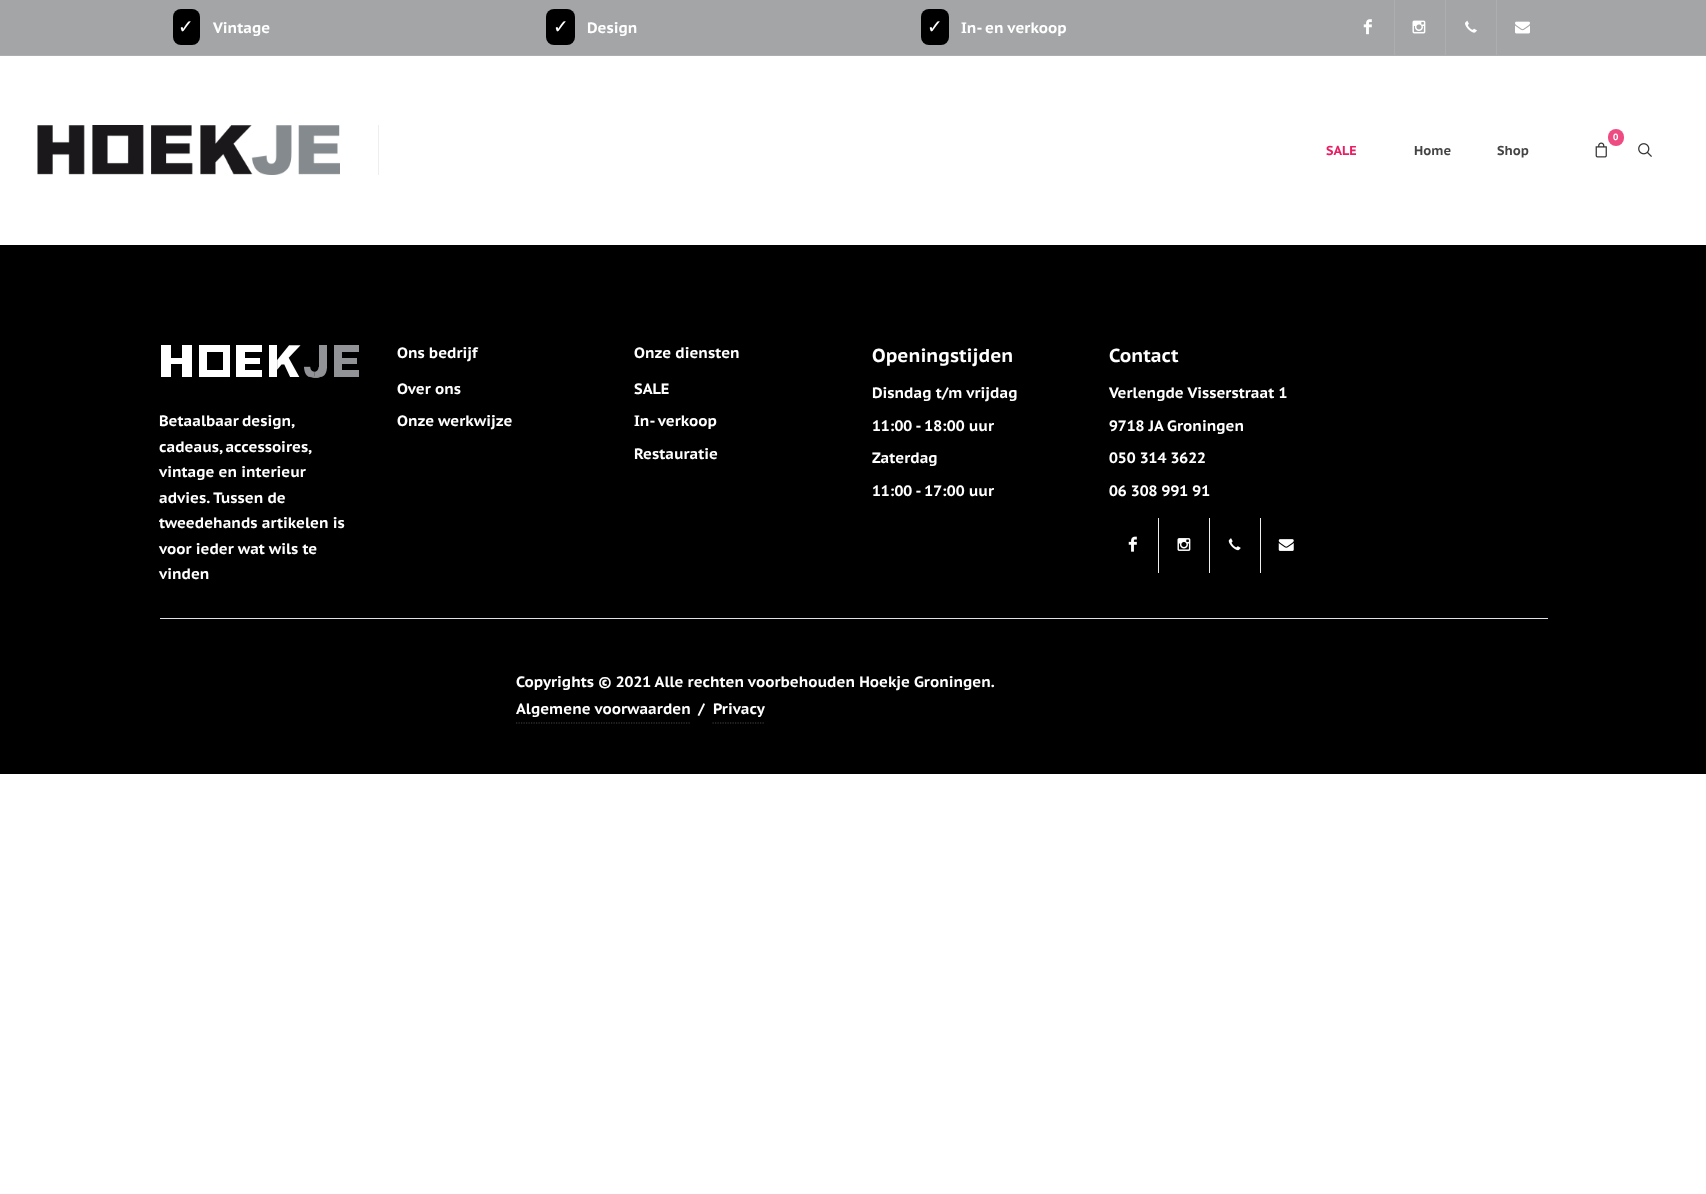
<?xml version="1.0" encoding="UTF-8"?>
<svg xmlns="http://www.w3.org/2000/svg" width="1706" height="1194">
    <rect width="100%" height="100%" fill="#FFFFFF"/>
    <rect x="0" y="0" width="1706" height="55" fill="#A3A5A7"/>
    <rect x="0" y="55" width="1706" height="1" fill="#ACAEB0"/>
    <rect x="173" y="9" width="27" height="36" rx="8" fill="#000000"/>
    <text x="178" y="33" font-family="DejaVu Sans" font-size="18.75" fill="#FFFFFF">✓</text>
    <text x="213" y="33" font-family="PT Sans Caption" font-size="15" font-weight="700" fill="#FFFFFF">Vintage</text>
    <rect x="546" y="9" width="29" height="36" rx="8" fill="#000000"/>
    <text x="553" y="33" font-family="DejaVu Sans" font-size="18.75" fill="#FFFFFF">✓</text>
    <text x="587" y="33" font-family="PT Sans Caption" font-size="15" font-weight="700" fill="#FFFFFF">Design</text>
    <rect x="921" y="9" width="28" height="36" rx="8" fill="#000000"/>
    <text x="927" y="33" font-family="DejaVu Sans" font-size="18.75" fill="#FFFFFF">✓</text>
    <text x="961" y="33" font-family="PT Sans Caption" font-size="15" font-weight="700" fill="#FFFFFF">In- en verkoop</text>
    <image x="1363" y="19" width="9" height="16" href="img_01.png"/>
    <rect x="1394" y="0" width="1" height="55" fill="#ACAEB0"/>
    <image x="1412" y="20" width="14" height="14" href="img_02.png"/>
    <rect x="1445" y="0" width="1" height="55" fill="#ACAEB0"/>
    <image x="1465" y="20" width="12" height="13" href="img_03.png"/>
    <rect x="1496" y="0" width="1" height="55" fill="#ACAEB0"/>
    <image x="1515" y="21" width="15" height="13" href="img_04.png"/>
    <rect x="378" y="125" width="1" height="50" fill="#EEEEEE"/>
    <image x="37" y="125" width="303" height="50" href="img_05.png"/>
    <rect x="1608" y="129" width="16" height="17" rx="8" fill="#ED4B82"/>
    <text x="1613" y="140" font-family="PT Sans Caption" font-size="9" font-weight="700" fill="#FFFFFF">0</text>
    <image x="1595" y="142" width="12" height="16" href="img_06.png"/>
    <image x="1638" y="143" width="14" height="14" href="img_07.png"/>
    <text x="1326" y="155" font-family="PT Sans Caption" font-size="13" font-weight="700" fill="#E91E63">SALE</text>
    <text x="1414" y="155" font-family="PT Sans Caption" font-size="13" font-weight="700" fill="#444444">Home</text>
    <text x="1497" y="155" font-family="PT Sans Caption" font-size="13" font-weight="700" fill="#444444">Shop</text>
    <rect x="0" y="245" width="1706" height="529" fill="#000001"/>
    <rect x="160" y="618" width="1388" height="1" fill="#DEE2E6"/>
    <image x="161" y="345" width="198" height="33" href="img_08.png"/>
    <text font-family="PT Sans Caption" font-size="15" font-weight="700" fill="#FFFFFF">
        <tspan x="159" y="426" word-spacing="-1">Betaalbaar design,</tspan>
        <tspan x="159" y="452" word-spacing="-1">cadeaus, accessoires,</tspan>
        <tspan x="159" y="477">vintage en interieur</tspan>
        <tspan x="159" y="503">advies. Tussen de</tspan>
        <tspan x="159" y="528">tweedehands artikelen is</tspan>
        <tspan x="159" y="554">voor ieder wat wils te</tspan>
        <tspan x="159" y="579">vinden</tspan>
    </text>
    <text x="397" y="358" font-family="PT Sans Caption" font-size="15" font-weight="700" fill="#FFFFFF">Ons bedrijf</text>
    <text x="397" y="394" font-family="PT Sans Caption" font-size="15" font-weight="700" fill="#FFFFFF">Over ons</text>
    <text x="397" y="426" font-family="PT Sans Caption" font-size="15" font-weight="700" fill="#FFFFFF">Onze werkwijze</text>
    <text x="634" y="358" font-family="PT Sans Caption" font-size="15" font-weight="700" fill="#FFFFFF">Onze diensten</text>
    <text x="634" y="394" font-family="PT Sans Caption" font-size="15" font-weight="700" fill="#FFFFFF">SALE</text>
    <text x="634" y="426" font-family="PT Sans Caption" font-size="15" font-weight="700" fill="#FFFFFF">In- verkoop</text>
    <text x="634" y="459" font-family="PT Sans Caption" font-size="15" font-weight="700" fill="#FFFFFF">Restauratie</text>
    <text x="872" y="362" font-family="PT Sans Caption" font-size="18.75" font-weight="700" fill="#FFFFFF">Openingstijden</text>
    <text x="872" y="398" font-family="PT Sans Caption" font-size="15" font-weight="700" fill="#FFFFFF">Disndag t/m vrijdag</text>
    <text x="872" y="431" font-family="PT Sans Caption" font-size="15" font-weight="700" fill="#FFFFFF">11:00 - 18:00 uur</text>
    <text x="872" y="463" font-family="PT Sans Caption" font-size="15" font-weight="700" fill="#FFFFFF">Zaterdag</text>
    <text x="872" y="496" font-family="PT Sans Caption" font-size="15" font-weight="700" fill="#FFFFFF">11:00 - 17:00 uur</text>
    <text x="1109" y="362" font-family="PT Sans Caption" font-size="18.75" font-weight="700" fill="#FFFFFF">Contact</text>
    <text x="1109" y="398" font-family="PT Sans Caption" font-size="15" font-weight="700" fill="#FFFFFF">Verlengde Visserstraat 1</text>
    <text x="1109" y="431" font-family="PT Sans Caption" font-size="15" font-weight="700" fill="#FFFFFF">9718 JA Groningen</text>
    <text x="1109" y="463" font-family="PT Sans Caption" font-size="15" font-weight="700" fill="#FFFFFF">050 314 3622</text>
    <text x="1109" y="496" font-family="PT Sans Caption" font-size="15" font-weight="700" fill="#FFFFFF">06 308 991 91</text>
    <image x="1128" y="536" width="9" height="16" href="img_09.png"/>
    <rect x="1158" y="518" width="1" height="55" fill="#EEEEEE"/>
    <image x="1177" y="538" width="14" height="13" href="img_10.png"/>
    <rect x="1209" y="518" width="1" height="55" fill="#EEEEEE"/>
    <image x="1228" y="538" width="13" height="13" href="img_11.png"/>
    <rect x="1260" y="518" width="1" height="55" fill="#EEEEEE"/>
    <image x="1278" y="539" width="16" height="12" href="img_12.png"/>
    <text x="516" y="687" font-family="PT Sans Caption" font-size="15" font-weight="700" fill="#FFFFFF">Copyrights © 2021 Alle rechten voorbehouden Hoekje Groningen.</text>
    <path d="M 516 723 H 690" fill="none" stroke="#444444" stroke-width="1.2" stroke-dasharray="1.25 1.25"/>
    <text x="516" y="714" font-family="PT Sans Caption" font-size="15" font-weight="700" fill="#FFFFFF">Algemene voorwaarden</text>
    <text x="698" y="714" font-family="PT Sans Caption" font-size="15" font-weight="700" fill="#FFFFFF">/</text>
    <path d="M 712.5 723 H 765" fill="none" stroke="#444444" stroke-width="1.2" stroke-dasharray="1.25 1.25"/>
    <text x="713" y="714" font-family="PT Sans Caption" font-size="15" font-weight="700" fill="#FFFFFF">Privacy</text>
</svg>
